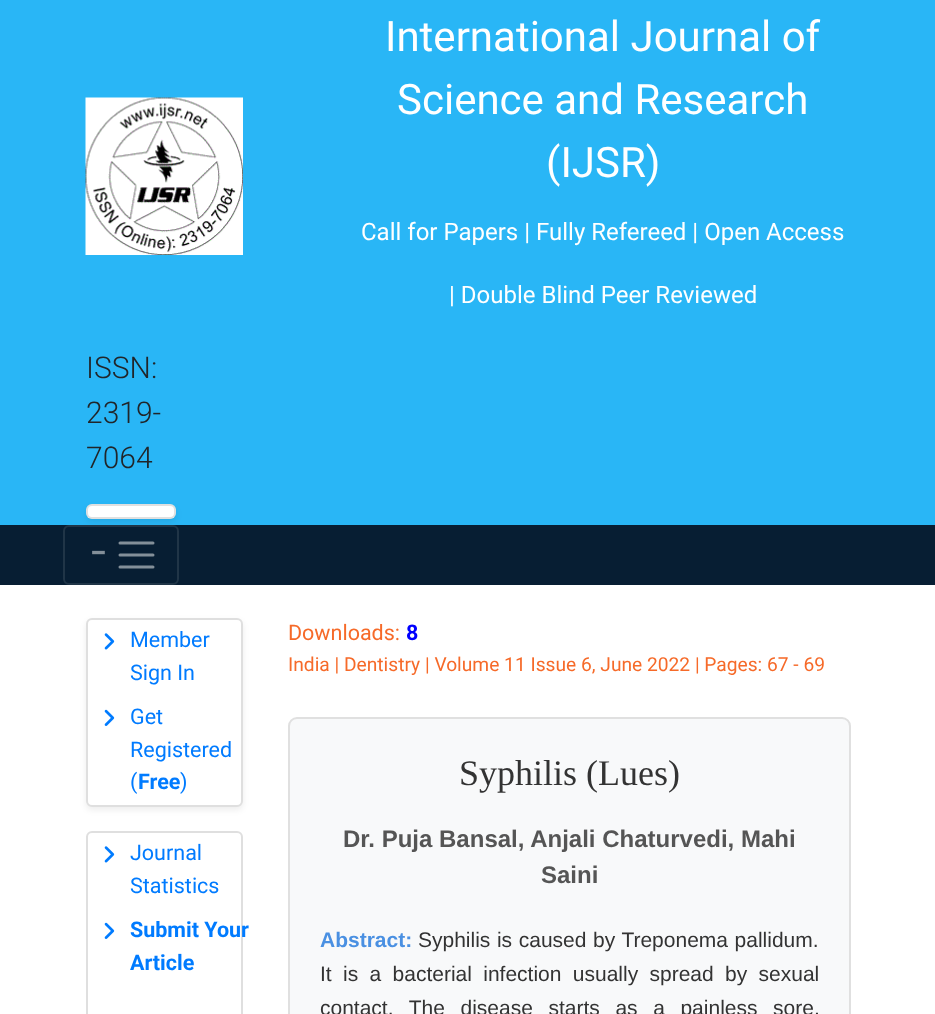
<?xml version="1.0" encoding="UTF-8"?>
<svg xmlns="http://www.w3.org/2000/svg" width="935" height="1014">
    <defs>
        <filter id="blur1" x="-50%" y="-200%" width="200%" height="500%"><feGaussianBlur stdDeviation="3"/></filter>
    </defs>
    <rect width="100%" height="100%" fill="#FFFFFF"/>
    <rect x="0" y="0" width="935" height="525" fill="#29B6F6"/>
    <image x="85" y="97" width="158" height="158" href="img_01.png"/>
    <text x="385" y="51" font-family="Roboto" font-size="42" fill="#FFFFFF">International Journal of</text>
    <text x="397" y="114" font-family="Roboto" font-size="42" fill="#FFFFFF">Science and Research</text>
    <text x="546" y="177" font-family="Roboto" font-size="42" fill="#FFFFFF">(IJSR)</text>
    <text x="361" y="240" font-family="Roboto" font-size="24" fill="#FFFFFF">Call for Papers | Fully Refereed | Open Access</text>
    <text x="449" y="303" font-family="Roboto" font-size="24" fill="#FFFFFF">| Double Blind Peer Reviewed</text>
    <text font-family="Roboto" font-size="30" font-weight="300" fill="#212529">
        <tspan x="86" y="378">ISSN:</tspan>
        <tspan x="86" y="423">2319-</tspan>
        <tspan x="86" y="468">7064</tspan>
    </text>
    <rect x="0" y="525" width="935" height="60" fill="#071E33"/>
    <rect x="64" y="526" width="114" height="58" rx="5" fill="none" stroke="#203547" stroke-width="2"/>
    <rect x="86" y="507" width="90" height="15" rx="6" fill="#000000" fill-opacity="0.07" filter="url(#blur1)"/>
    <rect x="86" y="504" width="90" height="15" rx="6" fill="#FFFFFF"/>
    <rect x="87" y="505" width="88" height="13" rx="5" fill="none" stroke="#000000" stroke-opacity="0.12" stroke-width="2"/>
    <text x="90" y="563" font-family="Roboto" font-size="30" font-weight="700" fill="#838F99">−</text>
    <path d="M 120 543 H 153 M 120 555 H 153 M 120 567 H 153" fill="none" stroke="#838F99" stroke-width="3" stroke-linecap="round"/>
    <rect x="86" y="621" width="157" height="189" rx="6" fill="#000000" fill-opacity="0.07" filter="url(#blur1)"/>
    <rect x="87" y="619" width="155" height="187" rx="5" fill="#FFFFFF" stroke="#DFDFDF" stroke-width="2"/>
    <image x="104" y="633" width="11" height="17" href="img_02.png"/>
    <text font-family="Roboto" font-size="21.5" fill="#007BFF">
        <tspan x="130" y="647">Member</tspan>
        <tspan x="130" y="680">Sign In</tspan>
    </text>
    <image x="104" y="709" width="11" height="17" href="img_03.png"/>
    <text font-family="Roboto" font-size="21.5" fill="#007BFF">
        <tspan x="130" y="724">Get</tspan>
        <tspan x="130" y="757">Registered</tspan>
        <tspan x="130" y="789">(</tspan>
    </text>
    <text x="138" y="789" font-family="Roboto" font-size="21.5" font-weight="700" fill="#007BFF">Free</text>
    <text x="180" y="789" font-family="Roboto" font-size="21.5" fill="#007BFF">)</text>
    <rect x="87" y="832" width="155" height="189" rx="5" fill="none" stroke="#DFDFDF" stroke-width="2"/>
    <image x="104" y="846" width="11" height="17" href="img_02.png"/>
    <text font-family="Roboto" font-size="21.5" fill="#007BFF">
        <tspan x="130" y="860">Journal</tspan>
        <tspan x="130" y="893">Statistics</tspan>
    </text>
    <image x="104" y="922" width="11" height="17" href="img_03.png"/>
    <text font-family="Roboto" font-size="21.5" font-weight="700" fill="#007BFF">
        <tspan x="130" y="937">Submit Your</tspan>
        <tspan x="130" y="970">Article</tspan>
    </text>
    <text x="288" y="640" font-family="Roboto" font-size="21.5" fill="#F66A29">Downloads:</text>
    <text x="406" y="640" font-family="Roboto" font-size="21.5" font-weight="700" fill="#0000FF">8</text>
    <text x="288" y="671" font-family="Roboto" font-size="19.2" fill="#F66A29">India | Dentistry | Volume 11 Issue 6, June 2022 | Pages: 67 - 69</text>
    <rect x="289" y="718" width="561" height="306" rx="8" fill="#F8F9FA" stroke="#E0E0E0" stroke-width="2"/>
    <text x="459" y="785" font-family="Liberation Serif" font-size="36" fill="#333333">Syphilis (Lues)</text>
    <text x="343" y="847" font-family="Liberation Sans" font-size="24" font-weight="700" fill="#555555">Dr. Puja Bansal, Anjali Chaturvedi, Mahi</text>
    <text x="541" y="883" font-family="Liberation Sans" font-size="24" font-weight="700" fill="#555555">Saini</text>
    <text x="320" y="947" font-family="Liberation Sans" font-size="21" font-weight="700" fill="#4A90E2">Abstract:</text>
    <text x="418" y="947" word-spacing="0.75" font-family="Liberation Sans" font-size="21" fill="#333333">Syphilis is caused by Treponema pallidum.</text>
    <text font-family="Liberation Sans" font-size="21" fill="#333333">
        <tspan x="320" y="981" word-spacing="5.5">It is a bacterial infection usually spread by sexual</tspan>
        <tspan x="320" y="1015" word-spacing="9.75">contact. The disease starts as a painless sore,</tspan>
    </text>
</svg>
